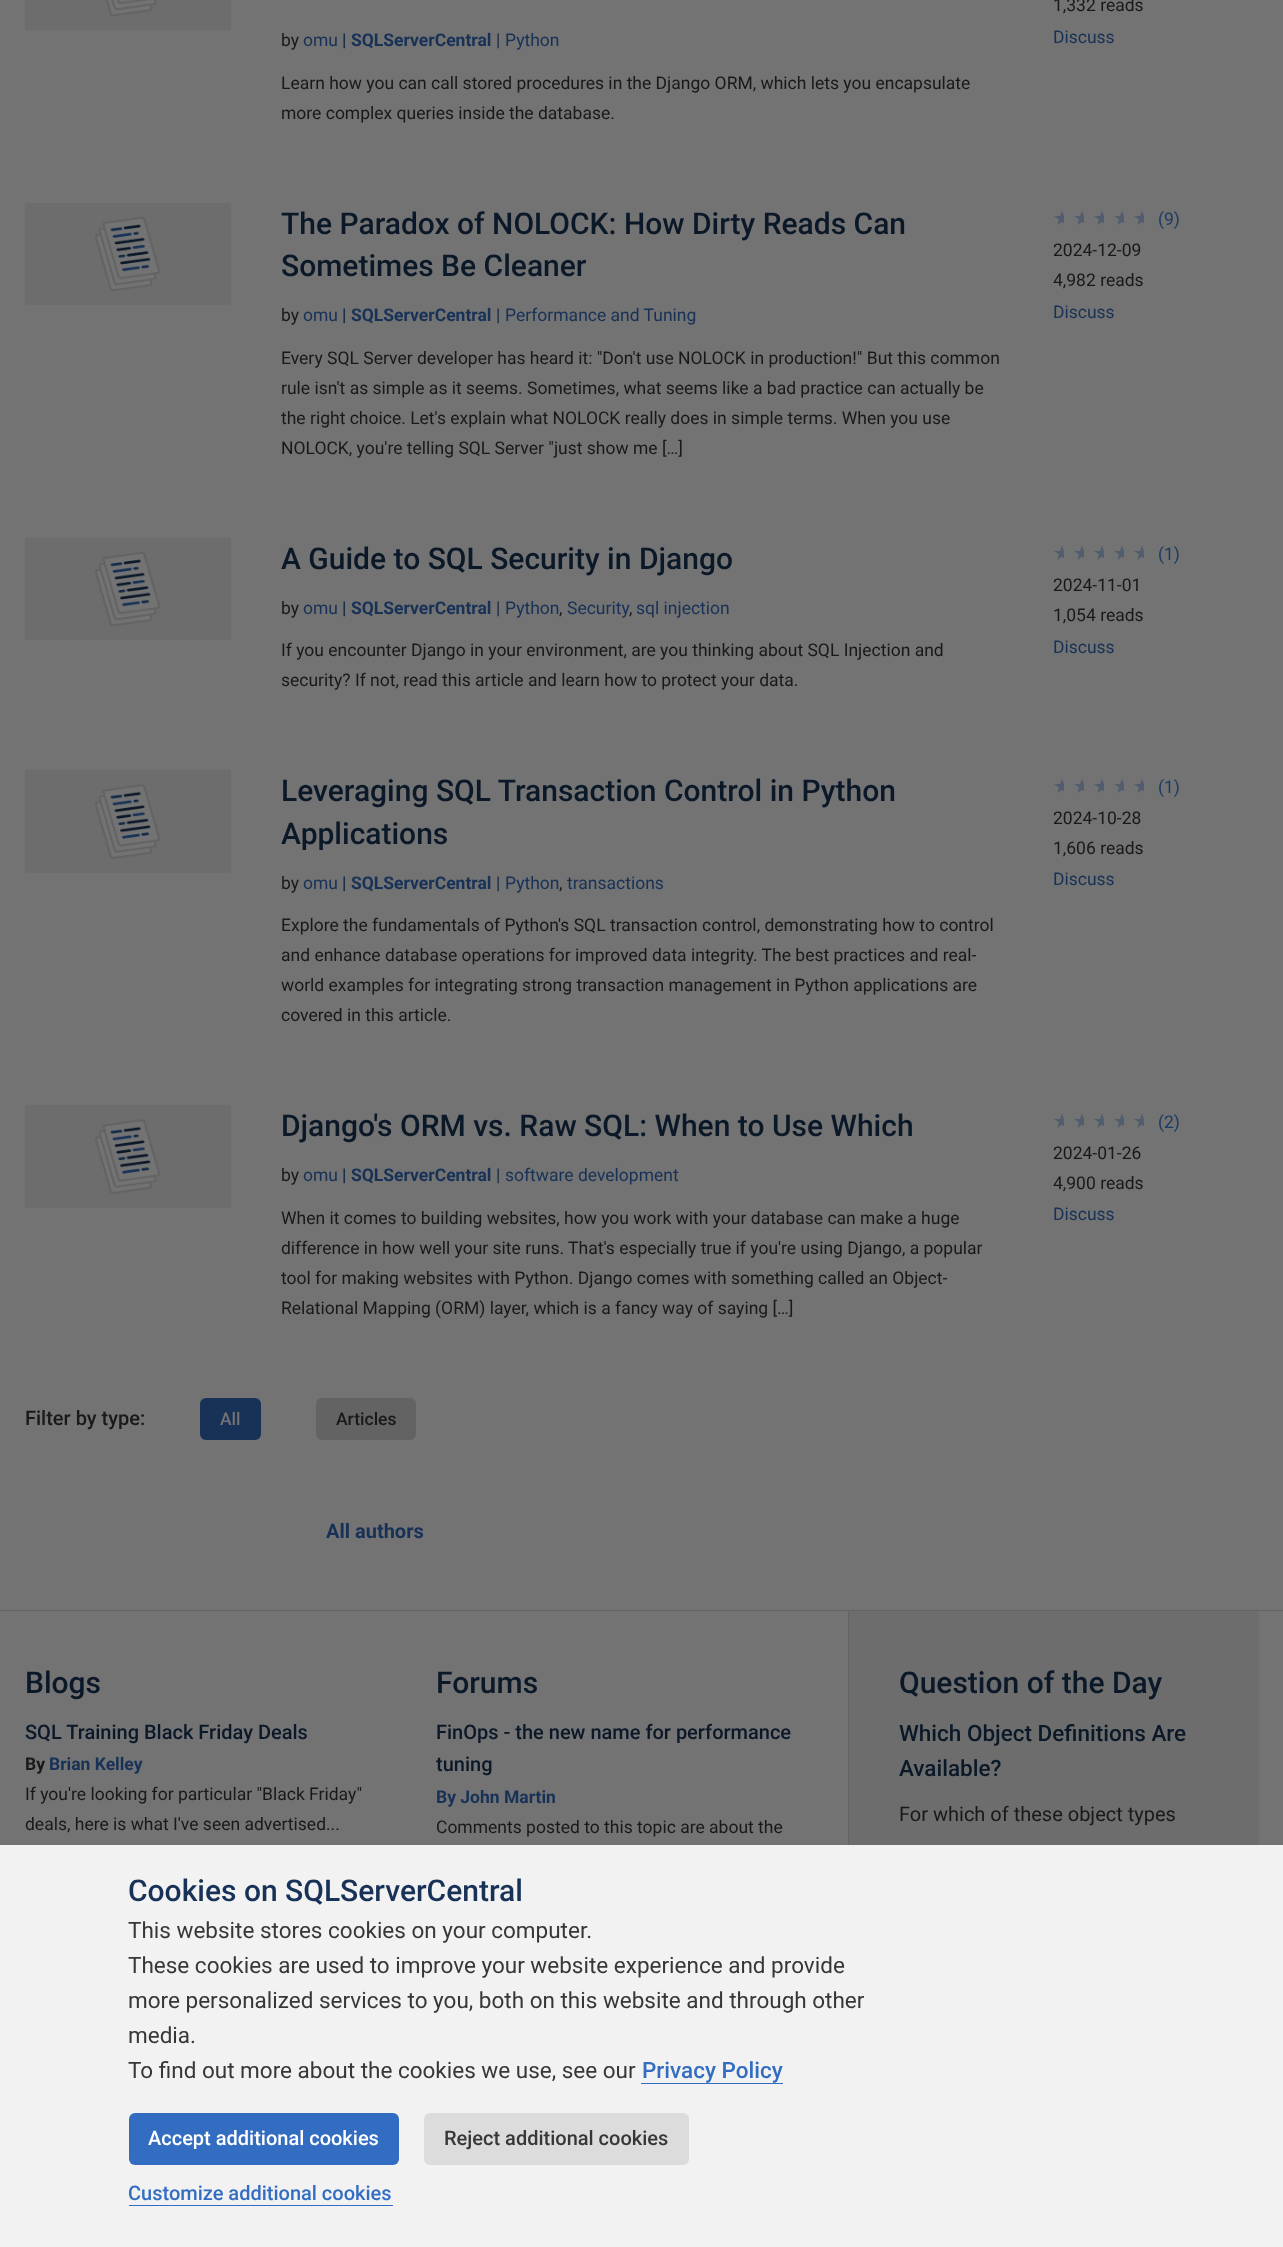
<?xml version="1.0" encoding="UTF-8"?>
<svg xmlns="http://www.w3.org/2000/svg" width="1283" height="2247">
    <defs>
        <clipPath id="clip1"><rect x="1054" y="209" width="10" height="20"/></clipPath>
        <clipPath id="clip2"><rect x="1074" y="209" width="10" height="20"/></clipPath>
        <clipPath id="clip3"><rect x="1094" y="209" width="10" height="20"/></clipPath>
        <clipPath id="clip4"><rect x="1114" y="209" width="10" height="20"/></clipPath>
        <clipPath id="clip5"><rect x="1134" y="209" width="10" height="20"/></clipPath>
        <clipPath id="clip6"><rect x="1054" y="544" width="10" height="20"/></clipPath>
        <clipPath id="clip7"><rect x="1074" y="544" width="10" height="20"/></clipPath>
        <clipPath id="clip8"><rect x="1094" y="544" width="10" height="20"/></clipPath>
        <clipPath id="clip9"><rect x="1114" y="544" width="10" height="20"/></clipPath>
        <clipPath id="clip10"><rect x="1134" y="544" width="10" height="20"/></clipPath>
        <clipPath id="clip11"><rect x="1054" y="776" width="10" height="20"/></clipPath>
        <clipPath id="clip12"><rect x="1074" y="776" width="10" height="20"/></clipPath>
        <clipPath id="clip13"><rect x="1094" y="776" width="10" height="20"/></clipPath>
        <clipPath id="clip14"><rect x="1114" y="776" width="10" height="20"/></clipPath>
        <clipPath id="clip15"><rect x="1134" y="776" width="10" height="20"/></clipPath>
        <clipPath id="clip16"><rect x="1054" y="1111" width="10" height="20"/></clipPath>
        <clipPath id="clip17"><rect x="1074" y="1111" width="10" height="20"/></clipPath>
        <clipPath id="clip18"><rect x="1094" y="1111" width="10" height="20"/></clipPath>
        <clipPath id="clip19"><rect x="1114" y="1111" width="10" height="20"/></clipPath>
        <clipPath id="clip20"><rect x="1134" y="1111" width="10" height="20"/></clipPath>
    </defs>
    <rect width="100%" height="100%" fill="#737373"/>
    <rect x="25" y="0" width="206" height="30" fill="#6D6D6D"/>
    <image x="105" y="0" width="52" height="17" href="img_01.png"/>
    <text x="1053" y="11" font-family="Roboto" font-size="17.5" fill="#191919">1,332 reads</text>
    <text x="1053" y="43" font-family="Roboto" font-size="17.5" fill="#173157">Discuss</text>
    <text x="281" y="46" font-family="Roboto" font-size="17.5" fill="#191919">by</text>
    <text x="303" y="46" font-family="Roboto" font-size="17.5" fill="#173157">omu</text>
    <text x="342" y="46" font-family="Roboto" font-size="17.5" font-weight="700" fill="#132A47">|</text>
    <text x="351" y="46" font-family="Roboto" font-size="17.5" font-weight="700" fill="#173157">SQLServerCentral</text>
    <text x="496" y="46" font-family="Roboto" font-size="17.5" fill="#132A47">|</text>
    <text x="505" y="46" font-family="Roboto" font-size="17.5" fill="#173157">Python</text>
    <text font-family="Roboto" font-size="17.5" fill="#191919">
        <tspan x="281" y="89">Learn how you can call stored procedures in the Django ORM, which lets you encapsulate</tspan>
        <tspan x="281" y="119">more complex queries inside the database.</tspan>
    </text>
    <rect x="25" y="203" width="206" height="102" fill="#6D6D6D"/>
    <image x="95" y="216" width="66" height="76" href="img_02.png"/>
    <text font-family="Roboto" font-size="30" font-weight="500" fill="#0B1828">
        <tspan x="281" y="234">The Paradox of NOLOCK: How Dirty Reads Can</tspan>
        <tspan x="281" y="276">Sometimes Be Cleaner</tspan>
    </text>
    <text x="281" y="321" font-family="Roboto" font-size="17.5" fill="#191919">by</text>
    <text x="303" y="321" font-family="Roboto" font-size="17.5" fill="#173157">omu</text>
    <text x="342" y="321" font-family="Roboto" font-size="17.5" font-weight="700" fill="#132A47">|</text>
    <text x="351" y="321" font-family="Roboto" font-size="17.5" font-weight="700" fill="#173157">SQLServerCentral</text>
    <text x="496" y="321" font-family="Roboto" font-size="17.5" fill="#132A47">|</text>
    <text x="505" y="321" font-family="Roboto" font-size="17.5" fill="#173157">Performance and Tuning</text>
    <text font-family="Roboto" font-size="17.5" fill="#191919">
        <tspan x="281" y="364">Every SQL Server developer has heard it: "Don't use NOLOCK in production!" But this common</tspan>
        <tspan x="281" y="394">rule isn't as simple as it seems. Sometimes, what seems like a bad practice can actually be</tspan>
        <tspan x="281" y="424">the right choice. Let's explain what NOLOCK really does in simple terms. When you use</tspan>
        <tspan x="281" y="454">NOLOCK, you're telling SQL Server "just show me […]</tspan>
    </text>
    <g clip-path="url(#clip1)">
        <text x="1053" y="225" font-family="DejaVu Sans" font-size="20" fill="#505D6D">★</text>
    </g>
    <g clip-path="url(#clip2)">
        <text x="1073" y="225" font-family="DejaVu Sans" font-size="20" fill="#505D6D">★</text>
    </g>
    <g clip-path="url(#clip3)">
        <text x="1093" y="225" font-family="DejaVu Sans" font-size="20" fill="#505D6D">★</text>
    </g>
    <g clip-path="url(#clip4)">
        <text x="1113" y="225" font-family="DejaVu Sans" font-size="20" fill="#505D6D">★</text>
    </g>
    <g clip-path="url(#clip5)">
        <text x="1133" y="225" font-family="DejaVu Sans" font-size="20" fill="#505D6D">★</text>
    </g>
    <text x="1158" y="225" font-family="Roboto" font-size="17.5" fill="#1B3C64">(9)</text>
    <text font-family="Roboto" font-size="17.5" fill="#191919">
        <tspan x="1053" y="256">2024-12-09</tspan>
        <tspan x="1053" y="286">4,982 reads</tspan>
    </text>
    <text x="1053" y="318" font-family="Roboto" font-size="17.5" fill="#173157">Discuss</text>
    <rect x="25" y="538" width="206" height="102" fill="#6D6D6D"/>
    <image x="95" y="551" width="66" height="76" href="img_02.png"/>
    <text x="281" y="569" font-family="Roboto" font-size="30" font-weight="500" fill="#0B1828">A Guide to SQL Security in Django</text>
    <text x="281" y="614" font-family="Roboto" font-size="17.5" fill="#191919">by</text>
    <text x="303" y="614" font-family="Roboto" font-size="17.5" fill="#173157">omu</text>
    <text x="342" y="614" font-family="Roboto" font-size="17.5" font-weight="700" fill="#132A47">|</text>
    <text x="351" y="614" font-family="Roboto" font-size="17.5" font-weight="700" fill="#173157">SQLServerCentral</text>
    <text x="496" y="614" font-family="Roboto" font-size="17.5" fill="#132A47">|</text>
    <text x="505" y="614" font-family="Roboto" font-size="17.5" fill="#173157">Python</text>
    <text x="559" y="614" font-family="Roboto" font-size="17.5" fill="#191919">,</text>
    <text x="567" y="614" font-family="Roboto" font-size="17.5" fill="#173157">Security</text>
    <text x="629" y="614" font-family="Roboto" font-size="17.5" fill="#191919">,</text>
    <text x="636" y="614" font-family="Roboto" font-size="17.5" fill="#173157">sql injection</text>
    <text font-family="Roboto" font-size="17.5" fill="#191919">
        <tspan x="281" y="656">If you encounter Django in your environment, are you thinking about SQL Injection and</tspan>
        <tspan x="281" y="686">security? If not, read this article and learn how to protect your data.</tspan>
    </text>
    <g clip-path="url(#clip6)">
        <text x="1053" y="560" font-family="DejaVu Sans" font-size="20" fill="#505D6D">★</text>
    </g>
    <g clip-path="url(#clip7)">
        <text x="1073" y="560" font-family="DejaVu Sans" font-size="20" fill="#505D6D">★</text>
    </g>
    <g clip-path="url(#clip8)">
        <text x="1093" y="560" font-family="DejaVu Sans" font-size="20" fill="#505D6D">★</text>
    </g>
    <g clip-path="url(#clip9)">
        <text x="1113" y="560" font-family="DejaVu Sans" font-size="20" fill="#505D6D">★</text>
    </g>
    <g clip-path="url(#clip10)">
        <text x="1133" y="560" font-family="DejaVu Sans" font-size="20" fill="#505D6D">★</text>
    </g>
    <text x="1158" y="560" font-family="Roboto" font-size="17.5" fill="#1B3C64">(1)</text>
    <text font-family="Roboto" font-size="17.5" fill="#191919">
        <tspan x="1053" y="591">2024-11-01</tspan>
        <tspan x="1053" y="621">1,054 reads</tspan>
    </text>
    <text x="1053" y="653" font-family="Roboto" font-size="17.5" fill="#173157">Discuss</text>
    <rect x="25" y="770" width="206" height="103" fill="#6D6D6D"/>
    <image x="95" y="784" width="65" height="75" href="img_03.png"/>
    <text font-family="Roboto" font-size="30" font-weight="500" fill="#0B1828">
        <tspan x="281" y="801">Leveraging SQL Transaction Control in Python</tspan>
        <tspan x="281" y="844">Applications</tspan>
    </text>
    <text x="281" y="889" font-family="Roboto" font-size="17.5" fill="#191919">by</text>
    <text x="303" y="889" font-family="Roboto" font-size="17.5" fill="#173157">omu</text>
    <text x="342" y="889" font-family="Roboto" font-size="17.5" font-weight="700" fill="#132A47">|</text>
    <text x="351" y="889" font-family="Roboto" font-size="17.5" font-weight="700" fill="#173157">SQLServerCentral</text>
    <text x="496" y="889" font-family="Roboto" font-size="17.5" fill="#132A47">|</text>
    <text x="505" y="889" font-family="Roboto" font-size="17.5" fill="#173157">Python</text>
    <text x="559" y="889" font-family="Roboto" font-size="17.5" fill="#191919">,</text>
    <text x="567" y="889" font-family="Roboto" font-size="17.5" fill="#173157">transactions</text>
    <text font-family="Roboto" font-size="17.5" fill="#191919">
        <tspan x="281" y="931">Explore the fundamentals of Python's SQL transaction control, demonstrating how to control</tspan>
        <tspan x="281" y="961">and enhance database operations for improved data integrity. The best practices and real-</tspan>
        <tspan x="281" y="991">world examples for integrating strong transaction management in Python applications are</tspan>
        <tspan x="281" y="1021">covered in this article.</tspan>
    </text>
    <g clip-path="url(#clip11)">
        <text x="1053" y="793" font-family="DejaVu Sans" font-size="20" fill="#505D6D">★</text>
    </g>
    <g clip-path="url(#clip12)">
        <text x="1073" y="793" font-family="DejaVu Sans" font-size="20" fill="#505D6D">★</text>
    </g>
    <g clip-path="url(#clip13)">
        <text x="1093" y="793" font-family="DejaVu Sans" font-size="20" fill="#505D6D">★</text>
    </g>
    <g clip-path="url(#clip14)">
        <text x="1113" y="793" font-family="DejaVu Sans" font-size="20" fill="#505D6D">★</text>
    </g>
    <g clip-path="url(#clip15)">
        <text x="1133" y="793" font-family="DejaVu Sans" font-size="20" fill="#505D6D">★</text>
    </g>
    <text x="1158" y="793" font-family="Roboto" font-size="17.5" fill="#1B3C64">(1)</text>
    <text font-family="Roboto" font-size="17.5" fill="#191919">
        <tspan x="1053" y="824">2024-10-28</tspan>
        <tspan x="1053" y="854">1,606 reads</tspan>
    </text>
    <text x="1053" y="885" font-family="Roboto" font-size="17.5" fill="#173157">Discuss</text>
    <rect x="25" y="1105" width="206" height="103" fill="#6D6D6D"/>
    <image x="95" y="1119" width="65" height="75" href="img_04.png"/>
    <text x="281" y="1136" font-family="Roboto" font-size="30" font-weight="500" fill="#0B1828">Django's ORM vs. Raw SQL: When to Use Which</text>
    <text x="281" y="1181" font-family="Roboto" font-size="17.5" fill="#191919">by</text>
    <text x="303" y="1181" font-family="Roboto" font-size="17.5" fill="#173157">omu</text>
    <text x="342" y="1181" font-family="Roboto" font-size="17.5" font-weight="700" fill="#132A47">|</text>
    <text x="351" y="1181" font-family="Roboto" font-size="17.5" font-weight="700" fill="#173157">SQLServerCentral</text>
    <text x="496" y="1181" font-family="Roboto" font-size="17.5" fill="#132A47">|</text>
    <text x="505" y="1181" font-family="Roboto" font-size="17.5" fill="#173157">software development</text>
    <text font-family="Roboto" font-size="17.5" fill="#191919">
        <tspan x="281" y="1224">When it comes to building websites, how you work with your database can make a huge</tspan>
        <tspan x="281" y="1254">difference in how well your site runs. That's especially true if you're using Django, a popular</tspan>
        <tspan x="281" y="1284">tool for making websites with Python. Django comes with something called an Object-</tspan>
        <tspan x="281" y="1314">Relational Mapping (ORM) layer, which is a fancy way of saying […]</tspan>
    </text>
    <g clip-path="url(#clip16)">
        <text x="1053" y="1128" font-family="DejaVu Sans" font-size="20" fill="#505D6D">★</text>
    </g>
    <g clip-path="url(#clip17)">
        <text x="1073" y="1128" font-family="DejaVu Sans" font-size="20" fill="#505D6D">★</text>
    </g>
    <g clip-path="url(#clip18)">
        <text x="1093" y="1128" font-family="DejaVu Sans" font-size="20" fill="#505D6D">★</text>
    </g>
    <g clip-path="url(#clip19)">
        <text x="1113" y="1128" font-family="DejaVu Sans" font-size="20" fill="#505D6D">★</text>
    </g>
    <g clip-path="url(#clip20)">
        <text x="1133" y="1128" font-family="DejaVu Sans" font-size="20" fill="#505D6D">★</text>
    </g>
    <text x="1158" y="1128" font-family="Roboto" font-size="17.5" fill="#1B3C64">(2)</text>
    <text font-family="Roboto" font-size="17.5" fill="#191919">
        <tspan x="1053" y="1159">2024-01-26</tspan>
        <tspan x="1053" y="1189">4,900 reads</tspan>
    </text>
    <text x="1053" y="1220" font-family="Roboto" font-size="17.5" fill="#173157">Discuss</text>
    <text x="25" y="1425" font-family="Roboto" font-size="20" font-weight="500" fill="#191919">Filter by type:</text>
    <rect x="200" y="1398" width="61" height="42" rx="6" fill="#173157"/>
    <text x="220" y="1425" font-family="Roboto" font-size="17.5" font-weight="500" fill="#737373">All</text>
    <rect x="316" y="1398" width="100" height="42" rx="6" fill="#636363"/>
    <text x="336" y="1425" font-family="Roboto" font-size="17.5" font-weight="500" fill="#191919">Articles</text>
    <text x="326" y="1538" font-family="Roboto" font-size="20" font-weight="700" fill="#173157">All authors</text>
    <rect x="0" y="1610" width="1283" height="1" fill="#636363"/>
    <text x="25" y="1693" font-family="Roboto" font-size="30" font-weight="500" fill="#0B1828">Blogs</text>
    <text x="25" y="1739" font-family="Roboto" font-size="20" font-weight="500" fill="#0B1828">SQL Training Black Friday Deals</text>
    <text x="25" y="1770" font-family="Roboto" font-size="17.5" font-weight="700" fill="#191919">By</text>
    <text x="49" y="1770" font-family="Roboto" font-size="17.5" font-weight="700" fill="#173157">Brian Kelley</text>
    <text font-family="Roboto" font-size="17.5" fill="#191919">
        <tspan x="25" y="1800">If you're looking for particular "Black Friday"</tspan>
        <tspan x="25" y="1830">deals, here is what I've seen advertised...</tspan>
    </text>
    <text x="436" y="1693" font-family="Roboto" font-size="30" font-weight="500" fill="#0B1828">Forums</text>
    <text font-family="Roboto" font-size="20" font-weight="500" fill="#0B1828">
        <tspan x="436" y="1739">FinOps - the new name for performance</tspan>
        <tspan x="436" y="1771">tuning</tspan>
    </text>
    <text x="436" y="1803" font-family="Roboto" font-size="17.5" font-weight="700" fill="#173157">By John Martin</text>
    <text x="436" y="1833" font-family="Roboto" font-size="17.5" fill="#191919">Comments posted to this topic are about the</text>
    <rect x="849" y="1611" width="410" height="234" fill="#6D6D6D"/>
    <rect x="848" y="1611" width="1" height="234" fill="#636363"/>
    <text x="899" y="1693" font-family="Roboto" font-size="30" font-weight="500" fill="#0B1828">Question of the Day</text>
    <text font-family="Roboto" font-size="22.5" font-weight="500" fill="#0B1828">
        <tspan x="899" y="1741">Which Object Definitions Are</tspan>
        <tspan x="899" y="1776">Available?</tspan>
    </text>
    <text x="899" y="1821" font-family="Roboto" font-size="20" fill="#191919">For which of these object types</text>
    <rect x="0" y="1845" width="1283" height="402" fill="#F2F2F2"/>
    <text x="128" y="1901" font-family="Roboto" font-size="30" font-weight="500" fill="#173157">Cookies on SQLServerCentral</text>
    <text font-family="Roboto" font-size="22.5" fill="#373737">
        <tspan x="128" y="1938">This website stores cookies on your computer.</tspan>
        <tspan x="128" y="1973">These cookies are used to improve your website experience and provide</tspan>
        <tspan x="128" y="2008">more personalized services to you, both on this website and through other</tspan>
        <tspan x="128" y="2043">media.</tspan>
        <tspan x="128" y="2078">To find out more about the cookies we use, see our</tspan>
    </text>
    <text x="642" y="2078" font-family="Roboto" font-size="22.5" font-weight="500" fill="#336DC2">Privacy Policy</text>
    <rect x="641" y="2083" width="142" height="1" fill="#336DC2"/>
    <rect x="129" y="2113" width="270" height="52" rx="6" fill="#336DC2"/>
    <text x="148" y="2145" font-family="Roboto" font-size="20" font-weight="500" fill="#FFFFFF">Accept additional cookies</text>
    <rect x="424" y="2113" width="265" height="52" rx="6" fill="#DCDCDC"/>
    <text x="444" y="2145" font-family="Roboto" font-size="20" font-weight="500" fill="#373737">Reject additional cookies</text>
    <text x="128" y="2200" font-family="Roboto" font-size="20" font-weight="500" fill="#336DC2">Customize additional cookies</text>
    <rect x="129" y="2205" width="264" height="1" fill="#336DC2"/>
</svg>
